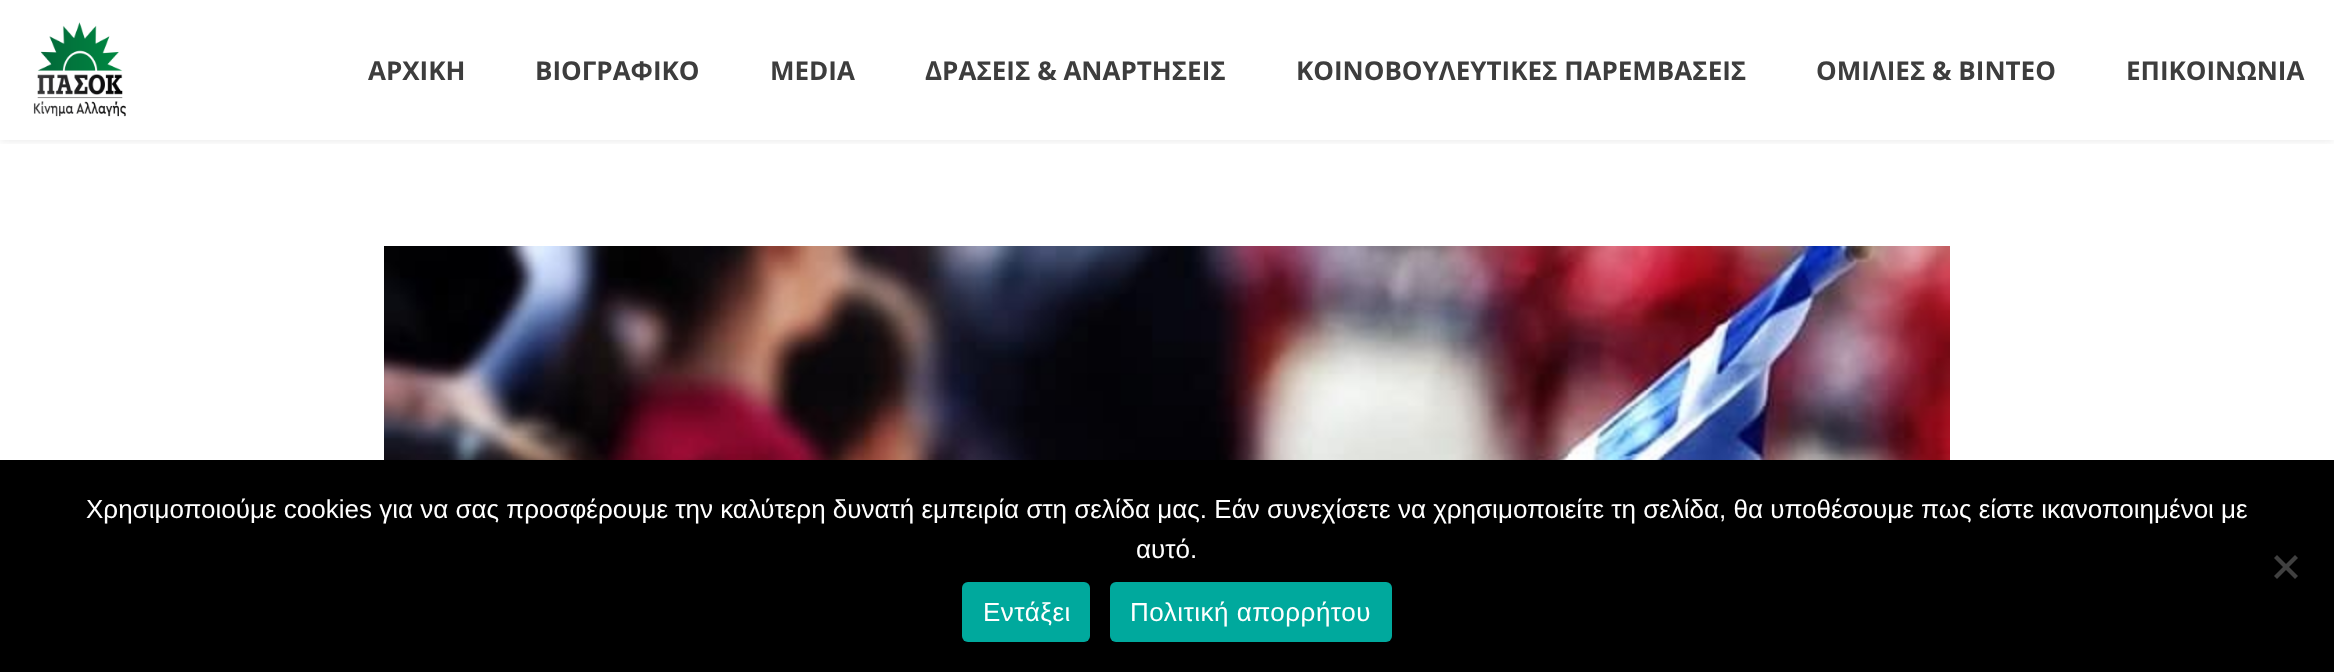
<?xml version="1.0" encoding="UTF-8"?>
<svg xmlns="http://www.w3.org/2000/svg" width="2334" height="672">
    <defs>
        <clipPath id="clip1"><rect x="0" y="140" width="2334" height="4"/></clipPath>
        <filter id="blur1" x="-50%" y="-200%" width="200%" height="500%"><feGaussianBlur stdDeviation="5"/></filter>
    </defs>
    <rect width="100%" height="100%" fill="#FFFFFF"/>
    <g clip-path="url(#clip1)">
        <rect x="0" y="0" width="2334" height="140" fill="#000000" fill-opacity="0.1" filter="url(#blur1)"/>
    </g>
    <image x="33" y="22" width="93" height="95" href="img_01.png"/>
    <text x="368" y="80" font-family="Open Sans" font-size="26" font-weight="700" fill="#3D3D3D">ΑΡΧΙΚΗ</text>
    <text x="535" y="80" font-family="Open Sans" font-size="26" font-weight="700" fill="#3D3D3D">ΒΙΟΓΡΑΦΙΚΟ</text>
    <text x="770" y="80" font-family="Open Sans" font-size="26" font-weight="700" fill="#3D3D3D">MEDIA</text>
    <text x="925" y="80" font-family="Open Sans" font-size="26" font-weight="700" fill="#3D3D3D">ΔΡΑΣΕΙΣ &amp; ΑΝΑΡΤΗΣΕΙΣ</text>
    <text x="1296" y="80" font-family="Open Sans" font-size="26" font-weight="700" fill="#3D3D3D">ΚΟΙΝΟΒΟΥΛΕΥΤΙΚΕΣ ΠΑΡΕΜΒΑΣΕΙΣ</text>
    <text x="1816" y="80" font-family="Open Sans" font-size="26" font-weight="700" fill="#3D3D3D">ΟΜΙΛΙΕΣ &amp; ΒΙΝΤΕΟ</text>
    <text x="2126" y="80" font-family="Open Sans" font-size="26" font-weight="700" fill="#3D3D3D">ΕΠΙΚΟΙΝΩΝΙΑ</text>
    <image x="384" y="246" width="1566" height="214" href="img_02.png"/>
    <rect x="0" y="460" width="2334" height="212" fill="#000000"/>
    <text x="86" y="518" font-family="Liberation Sans" font-size="26" fill="#FFFFFF">Χρησιμοποιούμε cookies για να σας προσφέρουμε την καλύτερη δυνατή εμπειρία στη σελίδα μας. Εάν συνεχίσετε να χρησιμοποιείτε τη σελίδα, θα υποθέσουμε πως είστε ικανοποιημένοι με</text>
    <text x="1136" y="558" font-family="Liberation Sans" font-size="26" fill="#FFFFFF">αυτό.</text>
    <path d="M 2295 555 L 2298 558 L 2277 579 L 2274 576 Z" fill="#404040"/>
    <path d="M 2274 558 L 2277 555 L 2298 576 L 2295 579 Z" fill="#404040"/>
    <rect x="962" y="582" width="128" height="60" rx="6" fill="#00A99D"/>
    <text x="983" y="621" font-family="Liberation Sans" font-size="26" letter-spacing="0.5" fill="#FFFFFF">Εντάξει</text>
    <rect x="1110" y="582" width="282" height="60" rx="6" fill="#00A99D"/>
    <text x="1130" y="621" font-family="Liberation Sans" font-size="26" letter-spacing="0.5" fill="#FFFFFF">Πολιτική απορρήτου</text>
</svg>
